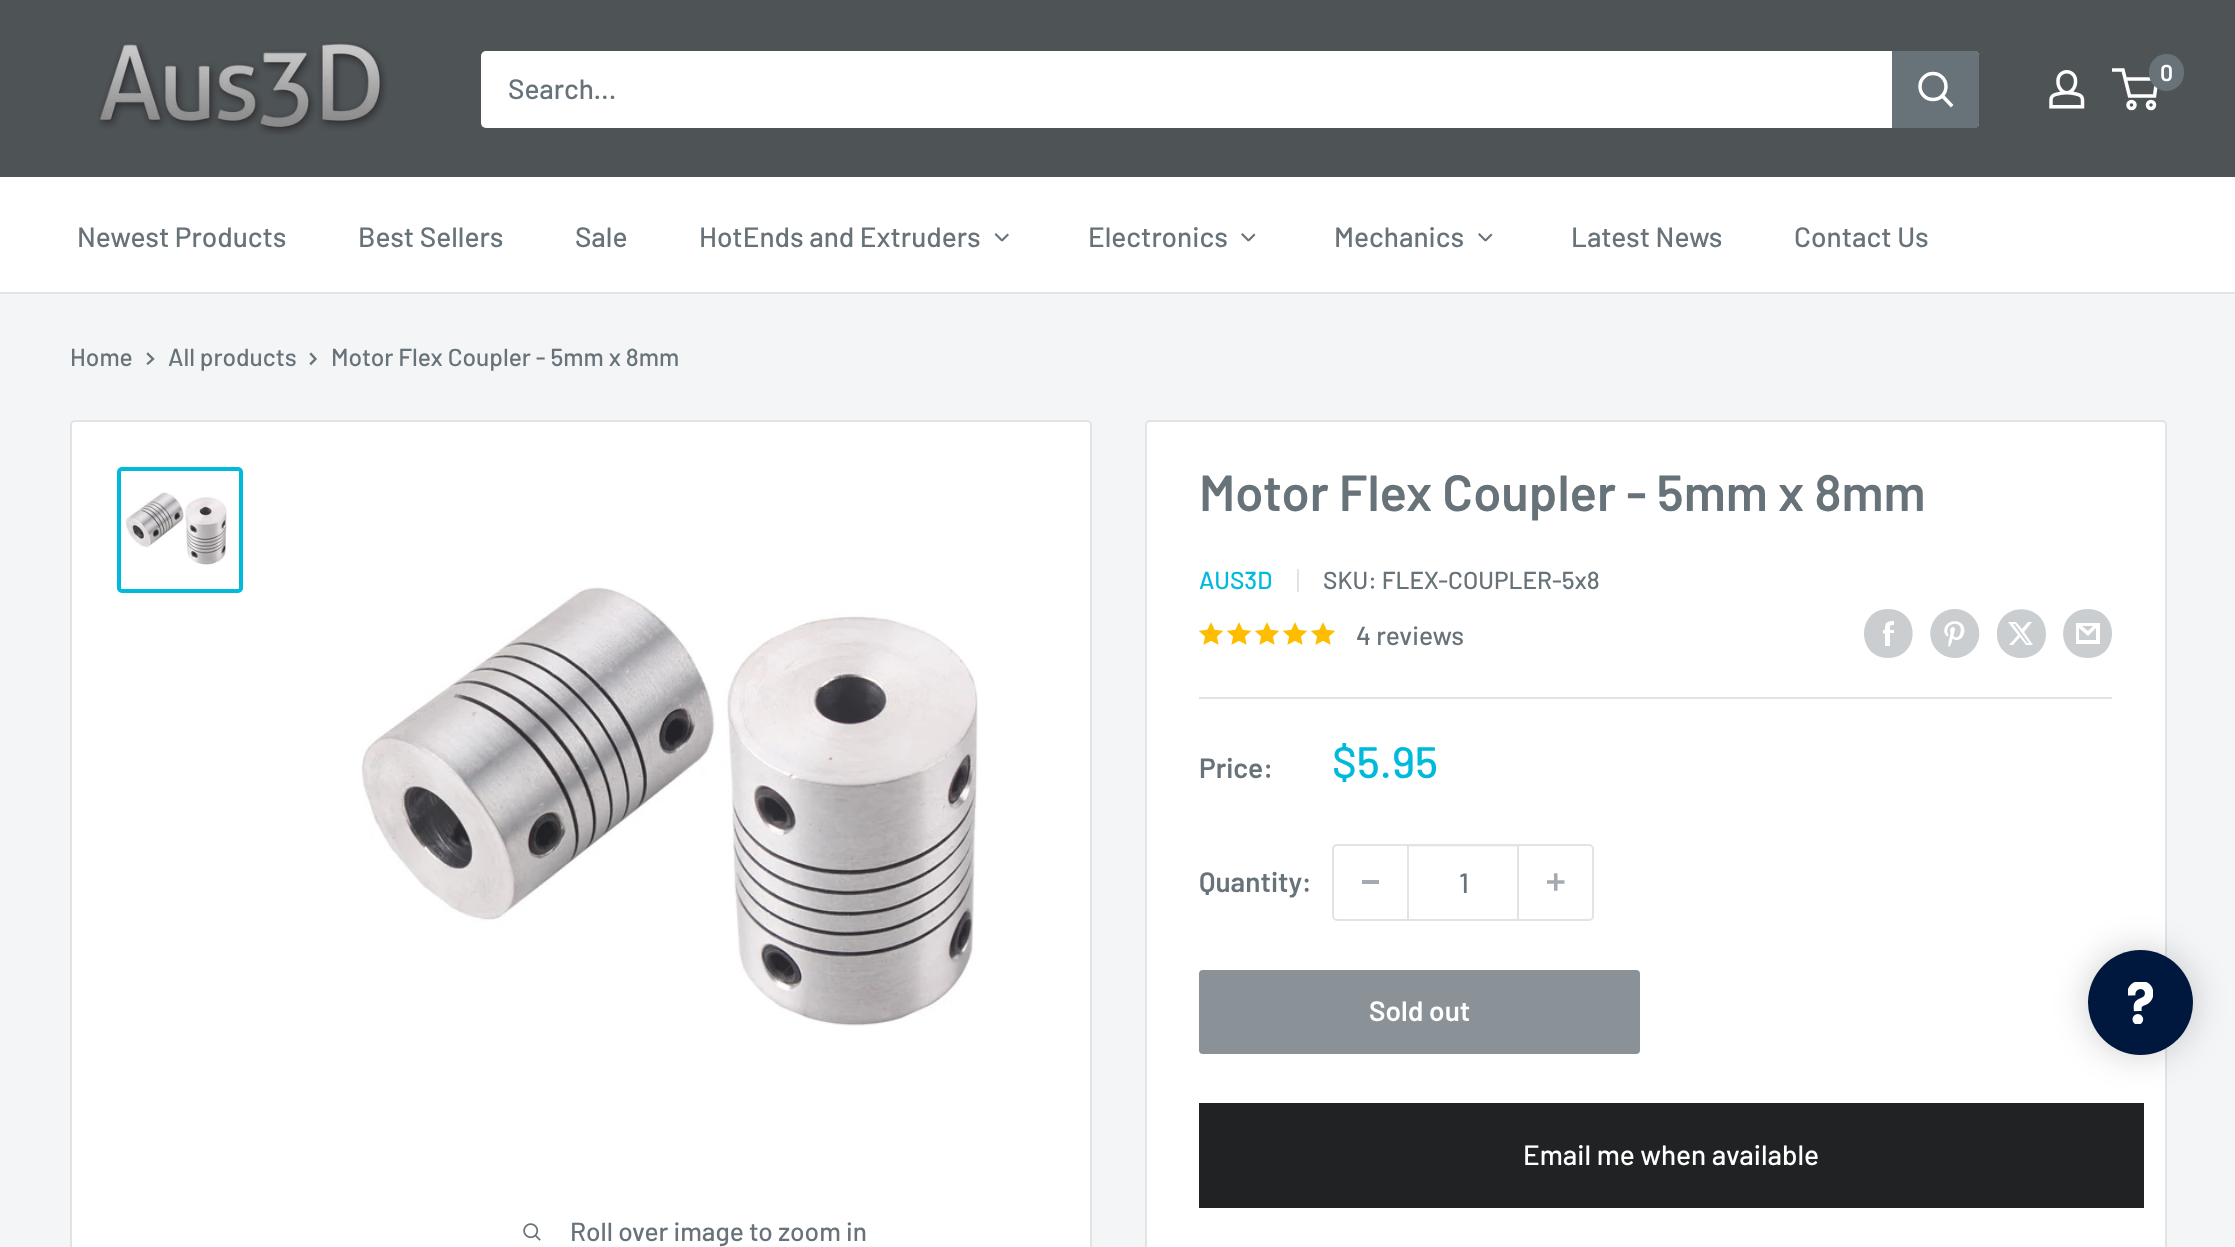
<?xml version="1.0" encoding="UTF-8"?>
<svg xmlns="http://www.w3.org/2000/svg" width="2235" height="1247">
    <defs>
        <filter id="blur1" x="-50%" y="-200%" width="200%" height="500%"><feGaussianBlur stdDeviation="17.5"/></filter>
    </defs>
    <rect width="100%" height="100%" fill="#F3F5F6"/>
    <rect x="0" y="0" width="2235" height="177" fill="#4E5356"/>
    <image x="98" y="42" width="289" height="93" href="img_01.png"/>
    <image x="2049" y="70" width="36" height="39" href="img_02.png"/>
    <circle cx="2131.5" cy="105" r="3.5" fill="none" stroke="#FFFFFF" stroke-width="3.5"/>
    <circle cx="2151" cy="105" r="3.5" fill="none" stroke="#FFFFFF" stroke-width="3.5"/>
    <path d="M 2125 79 H 2157 L 2154.5 96 H 2129.5 L 2123 70 H 2112" fill="none" stroke="#FFFFFF" stroke-width="3.5"/>
    <rect x="2149" y="54" width="35" height="37" rx="17.5" fill="#677279"/>
    <text x="2160" y="81" font-family="Barlow" font-size="23" font-weight="600" fill="#FFFFFF">0</text>
    <rect x="481" y="51" width="1498" height="77" rx="5" fill="#FFFFFF"/>
    <text x="508" y="99" font-family="Barlow" font-size="28" font-weight="500" fill="#677279">Search...</text>
    <path d="M 1892 51 H 1974 C 1977 51 1979 53 1979 56 V 123 C 1979 126 1977 128 1974 128 H 1892 Z" fill="#677279"/>
    <path d="M 1951 105 L 1942.5 96" fill="none" stroke="#FFFFFF" stroke-width="3.5" stroke-linecap="square"/>
    <circle cx="1933" cy="86.5" r="13" fill="none" stroke="#FFFFFF" stroke-width="3.5"/>
    <rect x="0" y="177" width="2235" height="115" fill="#FFFFFF"/>
    <rect x="0" y="292" width="2235" height="2" fill="#E1E3E4"/>
    <text x="77" y="247" font-family="Barlow" font-size="28" font-weight="500" fill="#677279">Newest Products</text>
    <text x="358" y="247" font-family="Barlow" font-size="28" font-weight="500" fill="#677279">Best Sellers</text>
    <text x="575" y="247" font-family="Barlow" font-size="28" font-weight="500" fill="#677279">Sale</text>
    <text x="699" y="247" font-family="Barlow" font-size="28" font-weight="500" fill="#677279">HotEnds and Extruders</text>
    <path d="M 1007.5 233.5 L 1009 235 L 1002.5 241.5 L 1001 240 Z" fill="#677279"/>
    <path d="M 996 233 L 1003 240 L 1001.5 241.5 L 994.5 234.5 Z" fill="#677279"/>
    <text x="1088" y="247" font-family="Barlow" font-size="28" font-weight="500" fill="#677279">Electronics</text>
    <path d="M 1254 233.5 L 1255.5 235 L 1249 241.5 L 1247.5 240 Z" fill="#677279"/>
    <path d="M 1242.5 233 L 1249.5 240 L 1248 241.5 L 1241 234.5 Z" fill="#677279"/>
    <text x="1334" y="247" font-family="Barlow" font-size="28" font-weight="500" fill="#677279">Mechanics</text>
    <path d="M 1491 233.5 L 1492.5 235 L 1486 241.5 L 1484.5 240 Z" fill="#677279"/>
    <path d="M 1479.5 233 L 1486.5 240 L 1485 241.5 L 1478 234.5 Z" fill="#677279"/>
    <text x="1571" y="247" font-family="Barlow" font-size="28" font-weight="500" fill="#677279">Latest News</text>
    <text x="1794" y="247" font-family="Barlow" font-size="28" font-weight="500" fill="#677279">Contact Us</text>
    <text x="70" y="366" font-family="Barlow" font-size="24.5" font-weight="500" fill="#677279">Home</text>
    <path d="M 148 354 L 153 359 L 148 363.5" fill="none" stroke="#677279" stroke-width="2.3" stroke-linecap="square"/>
    <text x="168" y="366" font-family="Barlow" font-size="24.5" font-weight="500" fill="#677279">All products</text>
    <path d="M 311 354 L 315.5 359 L 311 363.5" fill="none" stroke="#677279" stroke-width="2.3" stroke-linecap="square"/>
    <text x="331" y="366" font-family="Barlow" font-size="24.5" font-weight="500" fill="#677279">Motor Flex Coupler - 5mm x 8mm</text>
    <rect x="1146" y="421" width="1020" height="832" rx="4" fill="#FFFFFF" stroke="#E1E3E4" stroke-width="2"/>
    <text x="1199" y="511" font-family="Barlow" font-size="50.75" font-weight="600" fill="#677279">Motor Flex Coupler - 5mm x 8mm</text>
    <text x="1199" y="589" font-family="Barlow" font-size="24.5" font-weight="500" fill="#00BADB">AUS3D</text>
    <rect x="1297" y="569" width="2" height="23" fill="#E1E3E4"/>
    <text x="1323" y="589" font-family="Barlow" font-size="24.5" font-weight="500" fill="#677279">SKU: FLEX-COUPLER-5x8</text>
    <image x="1198" y="622" width="26" height="23" href="img_03.png"/>
    <image x="1226" y="622" width="26" height="23" href="img_03.png"/>
    <image x="1254" y="622" width="26" height="23" href="img_03.png"/>
    <image x="1282" y="622" width="26" height="23" href="img_03.png"/>
    <image x="1310" y="622" width="26" height="23" href="img_03.png"/>
    <text x="1356" y="645" font-family="Barlow" font-size="26.25" font-weight="500" fill="#677279">4 reviews</text>
    <path d="M 1888 658 C 1856 658 1856 609 1888 609 C 1921 609 1921 658 1888 658 Z M 1894 630 H 1890 C 1890 626 1889 625 1894 625 V 621 C 1886 621 1885 623 1885 630 H 1883 V 634 L 1885 633 V 646 H 1890 V 633 H 1894 Z" fill="#CACED0" fill-rule="evenodd"/>
    <image x="1930" y="609" width="50" height="49" href="img_04.png"/>
    <path d="M 2046 634 C 2046 666 1997 666 1997 634 C 1997 601 2046 601 2046 634 Z M 2032 622 H 2028 L 2022 629 L 2016 622 H 2008 L 2018 635 L 2009 645 H 2013 L 2020 637 L 2026 645 H 2033 L 2024 632 Z M 2029 643 H 2027 L 2013 624 H 2015 Z" fill="#CACED0" fill-rule="evenodd"/>
    <path d="M 2088 658 C 2055 658 2055 609 2088 609 C 2120 609 2120 658 2088 658 Z M 2082 626 H 2093 L 2088 631 Z M 2096 628 V 640 H 2079 V 628 L 2088 636 Z M 2100 623 H 2076 V 644 H 2100 Z" fill="#CACED0"/>
    <rect x="1199" y="697" width="913" height="2" fill="#E1E3E4"/>
    <text x="1199" y="778" font-family="Barlow" font-size="28" font-weight="600" fill="#677279">Price:</text>
    <text x="1332" y="778" font-family="Barlow" font-size="44" font-weight="500" fill="#00BADB">$5.95</text>
    <text x="1199" y="892" font-family="Barlow" font-size="28" font-weight="600" fill="#677279">Quantity:</text>
    <rect x="1333" y="845" width="260" height="75" rx="4" fill="none" stroke="#E1E3E4" stroke-width="2"/>
    <rect x="1362" y="880" width="17" height="4" fill="#A4AAAF"/>
    <rect x="1409" y="846" width="108" height="1" fill="#E1E3E4" fill-opacity="0.4"/>
    <rect x="1517" y="845" width="2" height="74" fill="#E1E3E4"/>
    <rect x="1407" y="845" width="2" height="74" fill="#E1E3E4"/>
    <text x="1459" y="893" font-family="Barlow" font-size="28" font-weight="500" fill="#677279">1</text>
    <image x="1547" y="873" width="18" height="18" href="img_05.png"/>
    <rect x="1200" y="971" width="439" height="82" rx="3" fill="#8A9297" stroke="#8A9297" stroke-width="2"/>
    <text x="1369" y="1021" font-family="Barlow" font-size="28" font-weight="600" fill="#FFFFFF">Sold out</text>
    <rect x="1199" y="1103" width="945" height="105" fill="#202223"/>
    <text x="1523" y="1165" font-family="Barlow" font-size="28" font-weight="500" fill="#FFFFFF">Email me when available</text>
    <rect x="71" y="421" width="1020" height="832" rx="4" fill="#FFFFFF" stroke="#E1E3E4" stroke-width="2"/>
    <rect x="119" y="469" width="122" height="122" rx="3" fill="none" stroke="#00BADB" stroke-width="4"/>
    <image x="125" y="492" width="103" height="73" href="img_06.png"/>
    <image x="361" y="587" width="617" height="439" href="img_07.png"/>
    <image x="523" y="1223" width="18" height="18" href="img_08.png"/>
    <text x="570" y="1241" font-family="Barlow" font-size="26.25" font-weight="500" fill="#677279">Roll over image to zoom in</text>
    <rect x="2088" y="950" width="105" height="105" rx="52.5" fill="#000000" fill-opacity="0.2" filter="url(#blur1)"/>
    <circle cx="2140.5" cy="1002.5" r="52.5" fill="#00183D"/>
    <image x="2128" y="982" width="25" height="42" href="img_09.png"/>
</svg>
